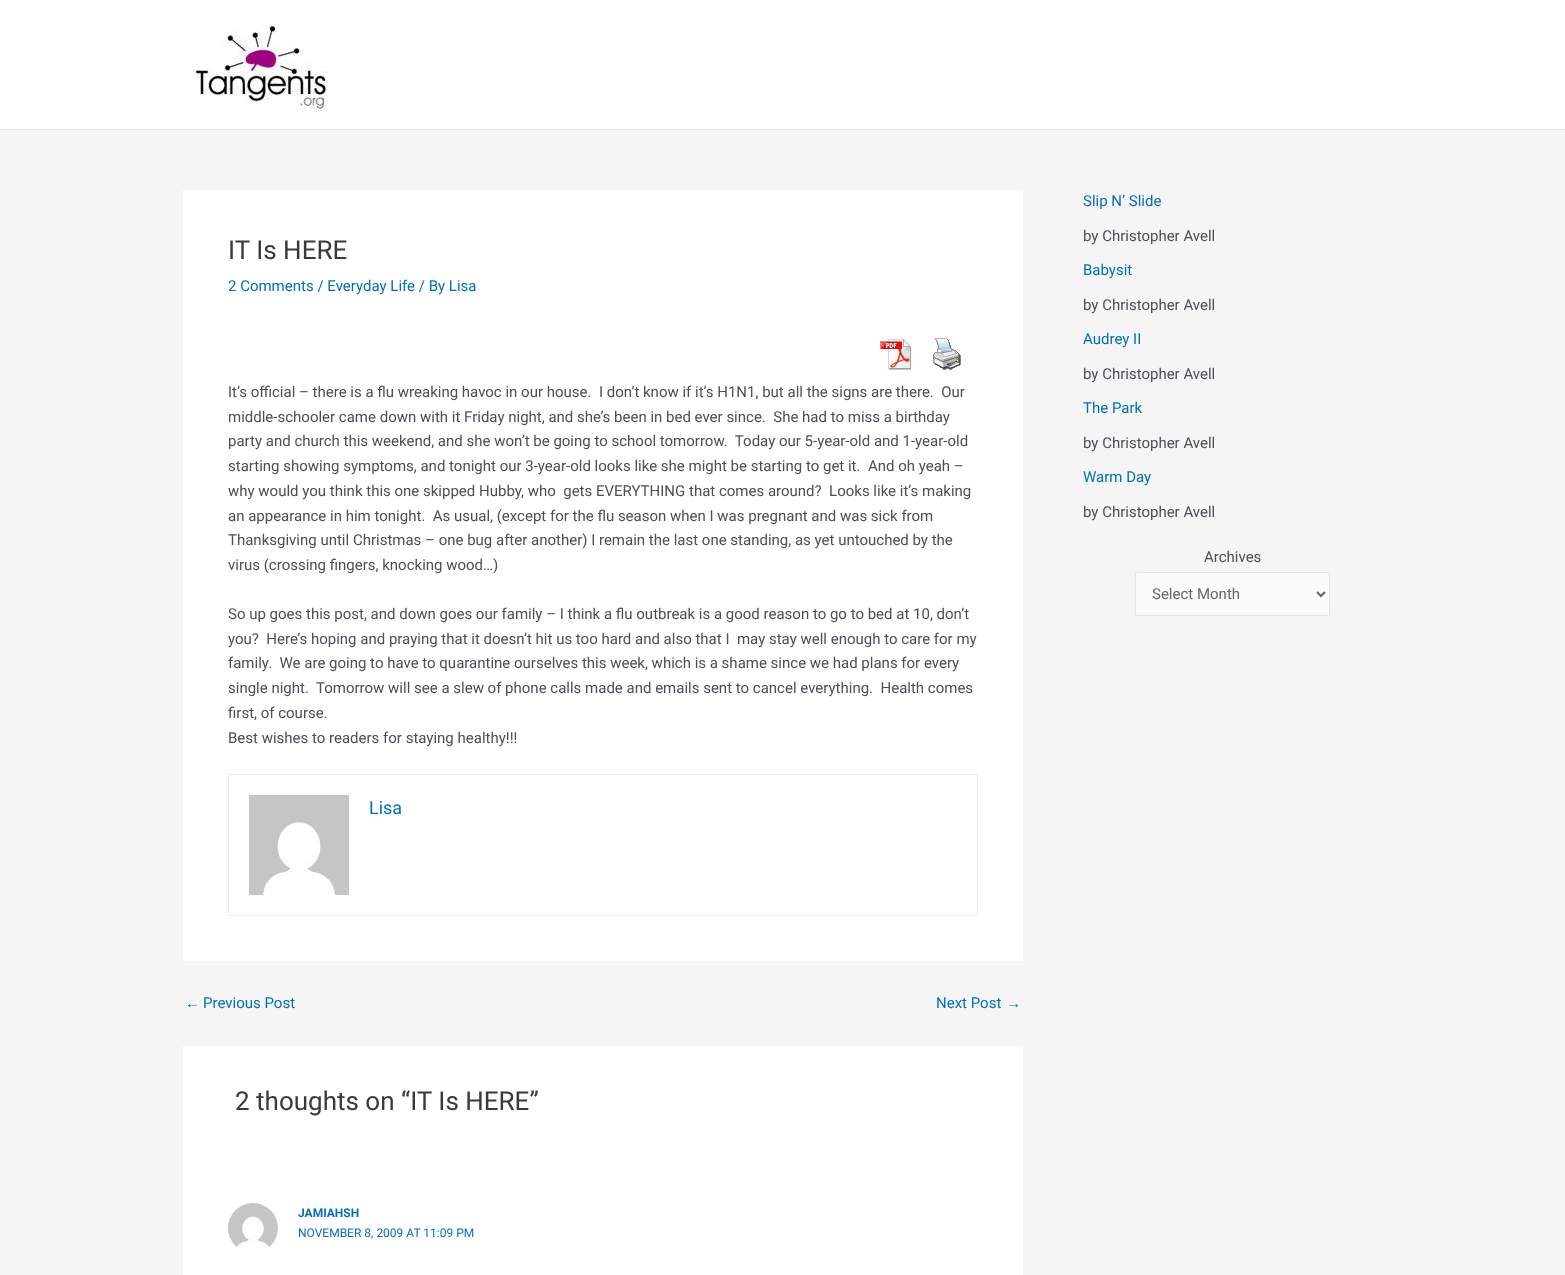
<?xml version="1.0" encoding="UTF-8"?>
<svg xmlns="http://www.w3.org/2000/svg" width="1565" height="1275">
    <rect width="100%" height="100%" fill="#F5F5F5"/>
    <rect x="0" y="0" width="1565" height="129" fill="#FFFFFF"/>
    <rect x="0" y="129" width="1565" height="1" fill="#E5E5E5"/>
    <image x="191" y="23" width="136" height="88" href="img_01.png"/>
    <rect x="183" y="190" width="840" height="771" fill="#FFFFFF"/>
    <text x="228" y="259" font-family="Roboto" font-size="26" fill="#3A3A3A">IT Is HERE</text>
    <text x="228" y="291" font-family="Roboto" font-size="15" fill="#0170B9">2 Comments / Everyday Life / By Lisa</text>
    <image x="880" y="339" width="31" height="31" href="img_02.png"/>
    <image x="933" y="338" width="28" height="32" href="img_03.png"/>
    <text font-family="Roboto" font-size="15" fill="#4B4F58" xml:space="preserve"><tspan x="228" y="397">It’s official – there is a flu wreaking havoc in our house.  I don’t know if it’s H1N1, but all the signs are there.  Our</tspan><tspan x="228" y="422">middle-schooler came down with it Friday night, and she’s been in bed ever since.  She had to miss a birthday</tspan><tspan x="228" y="446">party and church this weekend, and she won’t be going to school tomorrow.  Today our 5-year-old and 1-year-old</tspan><tspan x="228" y="471">starting showing symptoms, and tonight our 3-year-old looks like she might be starting to get it.  And oh yeah –</tspan><tspan x="228" y="496">why would you think this one skipped Hubby, who  gets EVERYTHING that comes around?  Looks like it’s making</tspan><tspan x="228" y="521">an appearance in him tonight.  As usual, (except for the flu season when I was pregnant and was sick from</tspan><tspan x="228" y="545">Thanksgiving until Christmas – one bug after another) I remain the last one standing, as yet untouched by the</tspan><tspan x="228" y="570">virus (crossing fingers, knocking wood…)</tspan></text>
    <text font-family="Roboto" font-size="15" fill="#4B4F58" xml:space="preserve"><tspan x="228" y="619">So up goes this post, and down goes our family – I think a flu outbreak is a good reason to go to bed at 10, don’t</tspan><tspan x="228" y="644">you?  Here’s hoping and praying that it doesn’t hit us too hard and also that I  may stay well enough to care for my</tspan><tspan x="228" y="668">family.  We are going to have to quarantine ourselves this week, which is a shame since we had plans for every</tspan><tspan x="228" y="693">single night.  Tomorrow will see a slew of phone calls made and emails sent to cancel everything.  Health comes</tspan><tspan x="228" y="718">first, of course.</tspan><tspan x="228" y="743">Best wishes to readers for staying healthy!!!</tspan></text>
    <rect x="228.5" y="774.5" width="749" height="141" fill="none" stroke="#EEEEEE"/>
    <image x="249" y="795" width="100" height="100" href="img_04.png"/>
    <text x="369" y="814" font-family="Roboto" font-size="18" fill="#0170B9">Lisa</text>
    <text x="185" y="1008" font-family="Liberation Sans" font-size="15" fill="#0170B9">←</text>
    <text x="203" y="1008" font-family="Roboto" font-size="15" fill="#0170B9">Previous Post</text>
    <text x="936" y="1008" font-family="Roboto" font-size="15" fill="#0170B9">Next Post</text>
    <text x="1006" y="1008" font-family="Liberation Sans" font-size="15" fill="#0170B9">→</text>
    <rect x="183" y="1046" width="840" height="229" fill="#FFFFFF"/>
    <text x="235" y="1110" font-family="Roboto" font-size="26" fill="#3A3A3A">2 thoughts on “IT Is HERE”</text>
    <image x="228" y="1203" width="50" height="47" href="img_05.png"/>
    <text x="298" y="1217" font-family="Roboto" font-size="12" font-weight="700" fill="#0170B9">JAMIAHSH</text>
    <text x="298" y="1237" font-family="Roboto" font-size="12" fill="#0170B9">NOVEMBER 8, 2009 AT 11:09 PM</text>
    <text x="1083" y="206" font-family="Roboto" font-size="15" fill="#0170B9">Slip N’ Slide</text>
    <text x="1083" y="241" font-family="Roboto" font-size="15" fill="#4B4F58">by Christopher Avell</text>
    <text x="1083" y="275" font-family="Roboto" font-size="15" fill="#0170B9">Babysit</text>
    <text x="1083" y="310" font-family="Roboto" font-size="15" fill="#4B4F58">by Christopher Avell</text>
    <text x="1083" y="344" font-family="Roboto" font-size="15" fill="#0170B9">Audrey II</text>
    <text x="1083" y="379" font-family="Roboto" font-size="15" fill="#4B4F58">by Christopher Avell</text>
    <text x="1083" y="413" font-family="Roboto" font-size="15" fill="#0170B9">The Park</text>
    <text x="1083" y="448" font-family="Roboto" font-size="15" fill="#4B4F58">by Christopher Avell</text>
    <text x="1083" y="482" font-family="Roboto" font-size="15" fill="#0170B9">Warm Day</text>
    <text x="1083" y="517" font-family="Roboto" font-size="15" fill="#4B4F58">by Christopher Avell</text>
    <text x="1204" y="562" font-family="Roboto" font-size="15" fill="#4B4F58">Archives</text>
    <rect x="1135.5" y="572.5" width="194" height="43" rx="1.5" fill="#FAFAFA" stroke="#E5E5E5"/>
    <path d="M 1317 592 L 1321 596 L 1325 592" fill="none" stroke="#666666" stroke-width="2"/>
    <text x="1152" y="599" font-family="Roboto" font-size="15" fill="#666666">Select Month</text>
</svg>
